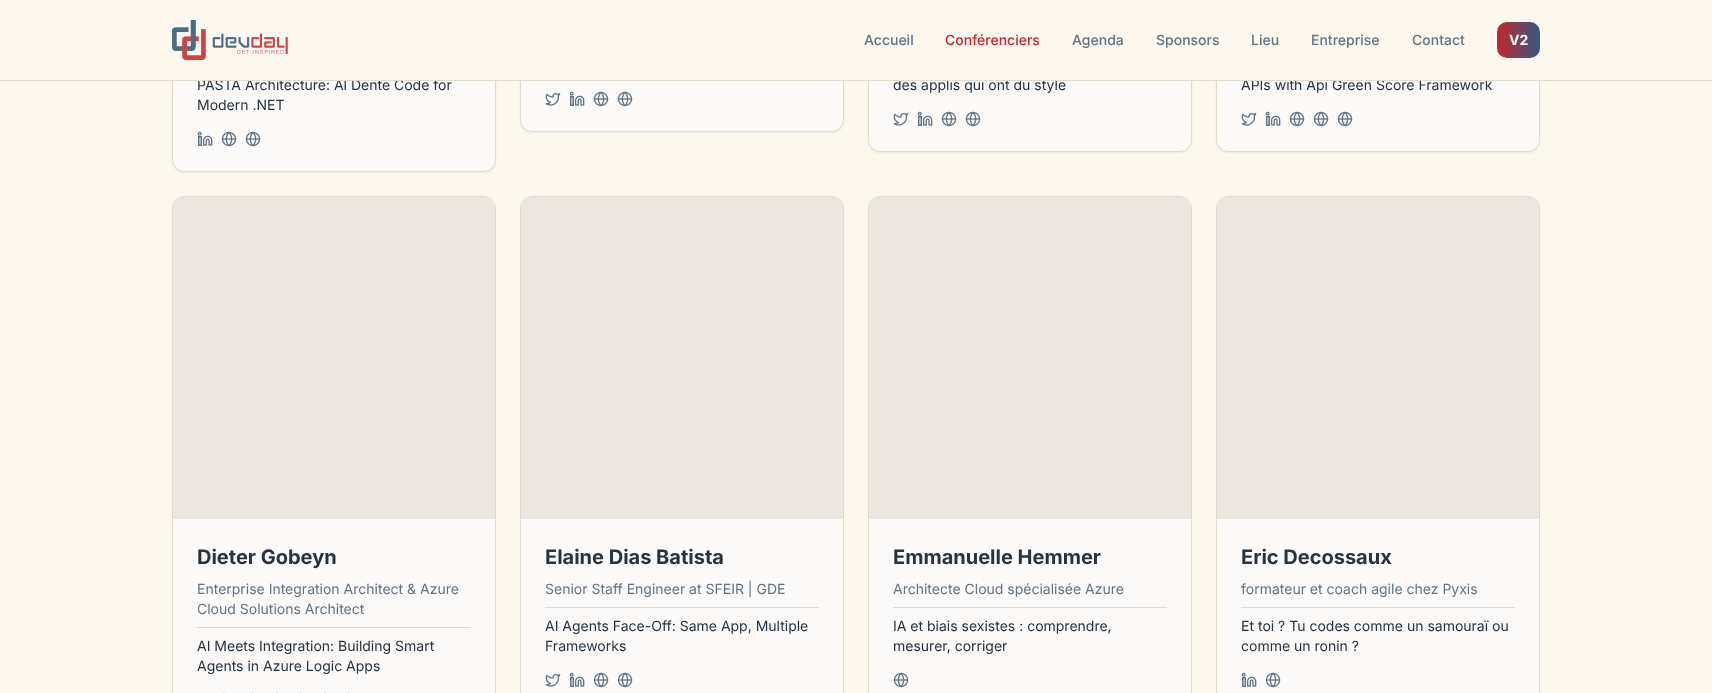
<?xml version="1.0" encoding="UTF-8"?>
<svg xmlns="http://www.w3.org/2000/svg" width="1712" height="693">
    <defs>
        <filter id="blur1" x="-50%" y="-200%" width="200%" height="500%"><feGaussianBlur stdDeviation="1"/></filter>
        <linearGradient id="g1" gradientUnits="userSpaceOnUse" x1="1497" y1="40" x2="1540" y2="40"><stop offset="0" stop-color="#C5262B"/><stop offset="1" stop-color="#315981"/></linearGradient>
    </defs>
    <rect width="100%" height="100%" fill="#FCF8EE"/>
    <rect x="172" y="-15" width="324" height="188" rx="12" fill="#000000" fill-opacity="0.05" filter="url(#blur1)"/>
    <rect x="172.5" y="-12.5" width="323" height="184" rx="11.5" fill="#FBFAF8" stroke="#E2DCCF"/>
    <rect x="197" y="66" width="274" height="1" fill="#E2DCCF"/>
    <text x="197" y="90" font-family="Inter" font-size="14" fill="#263340">PASTA Architecture: Al Dente Code for</text>
    <rect x="520" y="-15" width="324" height="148" rx="12" fill="#000000" fill-opacity="0.05" filter="url(#blur1)"/>
    <rect x="520.5" y="-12.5" width="323" height="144" rx="11.5" fill="#FBFAF8" stroke="#E2DCCF"/>
    <rect x="545" y="46" width="274" height="1" fill="#E2DCCF"/>
    <rect x="868" y="-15" width="324" height="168" rx="12" fill="#000000" fill-opacity="0.05" filter="url(#blur1)"/>
    <rect x="868.5" y="-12.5" width="323" height="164" rx="11.5" fill="#FBFAF8" stroke="#E2DCCF"/>
    <rect x="893" y="46" width="274" height="1" fill="#E2DCCF"/>
    <text x="893" y="90" font-family="Inter" font-size="14" fill="#263340">des applis qui ont du style</text>
    <rect x="1216" y="-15" width="324" height="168" rx="12" fill="#000000" fill-opacity="0.05" filter="url(#blur1)"/>
    <rect x="1216.5" y="-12.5" width="323" height="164" rx="11.5" fill="#FBFAF8" stroke="#E2DCCF"/>
    <rect x="1241" y="46" width="256" height="1" fill="#E2DCCF"/>
    <text x="1241" y="90" font-family="Inter" font-size="14" fill="#263340">APIs with Api Green Score Framework</text>
    <rect x="171" y="0" width="1370" height="80" fill="#FCF8EE" fill-opacity="0.95"/>
    <rect x="0" y="80" width="1712" height="1" fill="#E2DCCF"/>
    <image x="172" y="20" width="116" height="40" href="img_01.png"/>
    <text x="864" y="45" font-family="Inter" font-size="14" font-weight="500" fill="#627384">Accueil</text>
    <text x="945" y="45" font-family="Inter" font-size="14" font-weight="500" fill="#C5262B">Conférenciers</text>
    <text x="1072" y="45" font-family="Inter" font-size="14" font-weight="500" fill="#627384">Agenda</text>
    <text x="1156" y="45" font-family="Inter" font-size="14" font-weight="500" fill="#627384">Sponsors</text>
    <text x="1251" y="45" font-family="Inter" font-size="14" font-weight="500" fill="#627384">Lieu</text>
    <text x="1311" y="45" font-family="Inter" font-size="14" font-weight="500" fill="#627384">Entreprise</text>
    <text x="1412" y="45" font-family="Inter" font-size="14" font-weight="500" fill="#627384">Contact</text>
    <rect x="1497" y="22" width="43" height="36" rx="10" fill="url(#g1)"/>
    <text x="1509" y="45" font-family="Inter" font-size="14" font-weight="700" fill="#FBFAF8">V2</text>
    <text x="197" y="110" font-family="Inter" font-size="14" fill="#263340">Modern .NET</text>
    <image x="197" y="131" width="16" height="15" href="img_02.png"/>
    <image x="221" y="131" width="16" height="16" href="img_03.png"/>
    <image x="245" y="131" width="16" height="16" href="img_03.png"/>
    <image x="545" y="93" width="16" height="13" href="img_04.png"/>
    <image x="569" y="91" width="16" height="15" href="img_02.png"/>
    <image x="593" y="91" width="16" height="16" href="img_03.png"/>
    <image x="617" y="91" width="16" height="16" href="img_03.png"/>
    <image x="893" y="113" width="16" height="13" href="img_04.png"/>
    <image x="917" y="111" width="16" height="15" href="img_02.png"/>
    <image x="941" y="111" width="16" height="16" href="img_03.png"/>
    <image x="965" y="111" width="16" height="16" href="img_03.png"/>
    <image x="1241" y="113" width="16" height="13" href="img_04.png"/>
    <image x="1265" y="111" width="16" height="15" href="img_02.png"/>
    <image x="1289" y="111" width="16" height="16" href="img_03.png"/>
    <image x="1313" y="111" width="16" height="16" href="img_03.png"/>
    <image x="1337" y="111" width="16" height="16" href="img_03.png"/>
    <rect x="172.5" y="196.5" width="323" height="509" rx="11.5" fill="#FBFAF8" stroke="#E2DCCF"/>
    <path d="M 184 197 H 484 C 490 197 495 202 495 208 V 519 H 173 V 208 C 173 202 178 197 184 197 Z" fill="#EBE7E0"/>
    <text x="197" y="564" font-family="Inter" font-size="20" font-weight="700" fill="#263340">Dieter Gobeyn</text>
    <text font-family="Inter" font-size="14" fill="#627384">
        <tspan x="197" y="594">Enterprise Integration Architect &amp; Azure</tspan>
        <tspan x="197" y="614">Cloud Solutions Architect</tspan>
    </text>
    <rect x="197" y="627" width="274" height="1" fill="#E2DCCF"/>
    <text font-family="Inter" font-size="14" fill="#263340">
        <tspan x="197" y="651">AI Meets Integration: Building Smart</tspan>
        <tspan x="197" y="671">Agents in Azure Logic Apps</tspan>
    </text>
    <image x="223" y="692" width="2" height="1" href="img_05.png"/>
    <rect x="252" y="692" width="2" height="1" fill="#DCDFE1"/>
    <rect x="276" y="692" width="2" height="1" fill="#DCDFE1"/>
    <rect x="300" y="692" width="2" height="1" fill="#DCDFE1"/>
    <rect x="324" y="692" width="2" height="1" fill="#DCDFE1"/>
    <rect x="348" y="692" width="2" height="1" fill="#DCDFE1"/>
    <rect x="520.5" y="196.5" width="323" height="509" rx="11.5" fill="#FBFAF8" stroke="#E2DCCF"/>
    <path d="M 532 197 H 832 C 838 197 843 202 843 208 V 519 H 521 V 208 C 521 202 526 197 532 197 Z" fill="#EBE7E0"/>
    <text x="545" y="564" font-family="Inter" font-size="20" font-weight="700" fill="#263340">Elaine Dias Batista</text>
    <text x="545" y="594" font-family="Inter" font-size="14" fill="#627384">Senior Staff Engineer at SFEIR | GDE</text>
    <rect x="545" y="607" width="274" height="1" fill="#E2DCCF"/>
    <text font-family="Inter" font-size="14" fill="#263340">
        <tspan x="545" y="631">AI Agents Face-Off: Same App, Multiple</tspan>
        <tspan x="545" y="651">Frameworks</tspan>
    </text>
    <image x="545" y="674" width="16" height="13" href="img_04.png"/>
    <image x="569" y="672" width="16" height="15" href="img_02.png"/>
    <image x="593" y="672" width="16" height="16" href="img_03.png"/>
    <image x="617" y="672" width="16" height="16" href="img_03.png"/>
    <rect x="868.5" y="196.5" width="323" height="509" rx="11.5" fill="#FBFAF8" stroke="#E2DCCF"/>
    <path d="M 880 197 H 1180 C 1186 197 1191 202 1191 208 V 519 H 869 V 208 C 869 202 874 197 880 197 Z" fill="#EBE7E0"/>
    <text x="893" y="564" font-family="Inter" font-size="20" font-weight="700" fill="#263340">Emmanuelle Hemmer</text>
    <text x="893" y="594" font-family="Inter" font-size="14" fill="#627384">Architecte Cloud spécialisée Azure</text>
    <rect x="893" y="607" width="274" height="1" fill="#E2DCCF"/>
    <text font-family="Inter" font-size="14" fill="#263340">
        <tspan x="893" y="631">IA et biais sexistes : comprendre,</tspan>
        <tspan x="893" y="651">mesurer, corriger</tspan>
    </text>
    <image x="893" y="672" width="16" height="16" href="img_03.png"/>
    <rect x="1216.5" y="196.5" width="323" height="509" rx="11.5" fill="#FBFAF8" stroke="#E2DCCF"/>
    <path d="M 1228 197 H 1528 C 1534 197 1539 202 1539 208 V 519 H 1217 V 208 C 1217 202 1222 197 1228 197 Z" fill="#EBE7E0"/>
    <text x="1241" y="564" font-family="Inter" font-size="20" font-weight="700" fill="#263340">Eric Decossaux</text>
    <text x="1241" y="594" font-family="Inter" font-size="14" fill="#627384">formateur et coach agile chez Pyxis</text>
    <rect x="1241" y="607" width="274" height="1" fill="#E2DCCF"/>
    <text font-family="Inter" font-size="14" fill="#263340">
        <tspan x="1241" y="631">Et toi ? Tu codes comme un samouraï ou</tspan>
        <tspan x="1241" y="651">comme un ronin ?</tspan>
    </text>
    <image x="1241" y="672" width="16" height="15" href="img_02.png"/>
    <image x="1265" y="672" width="16" height="16" href="img_03.png"/>
</svg>
